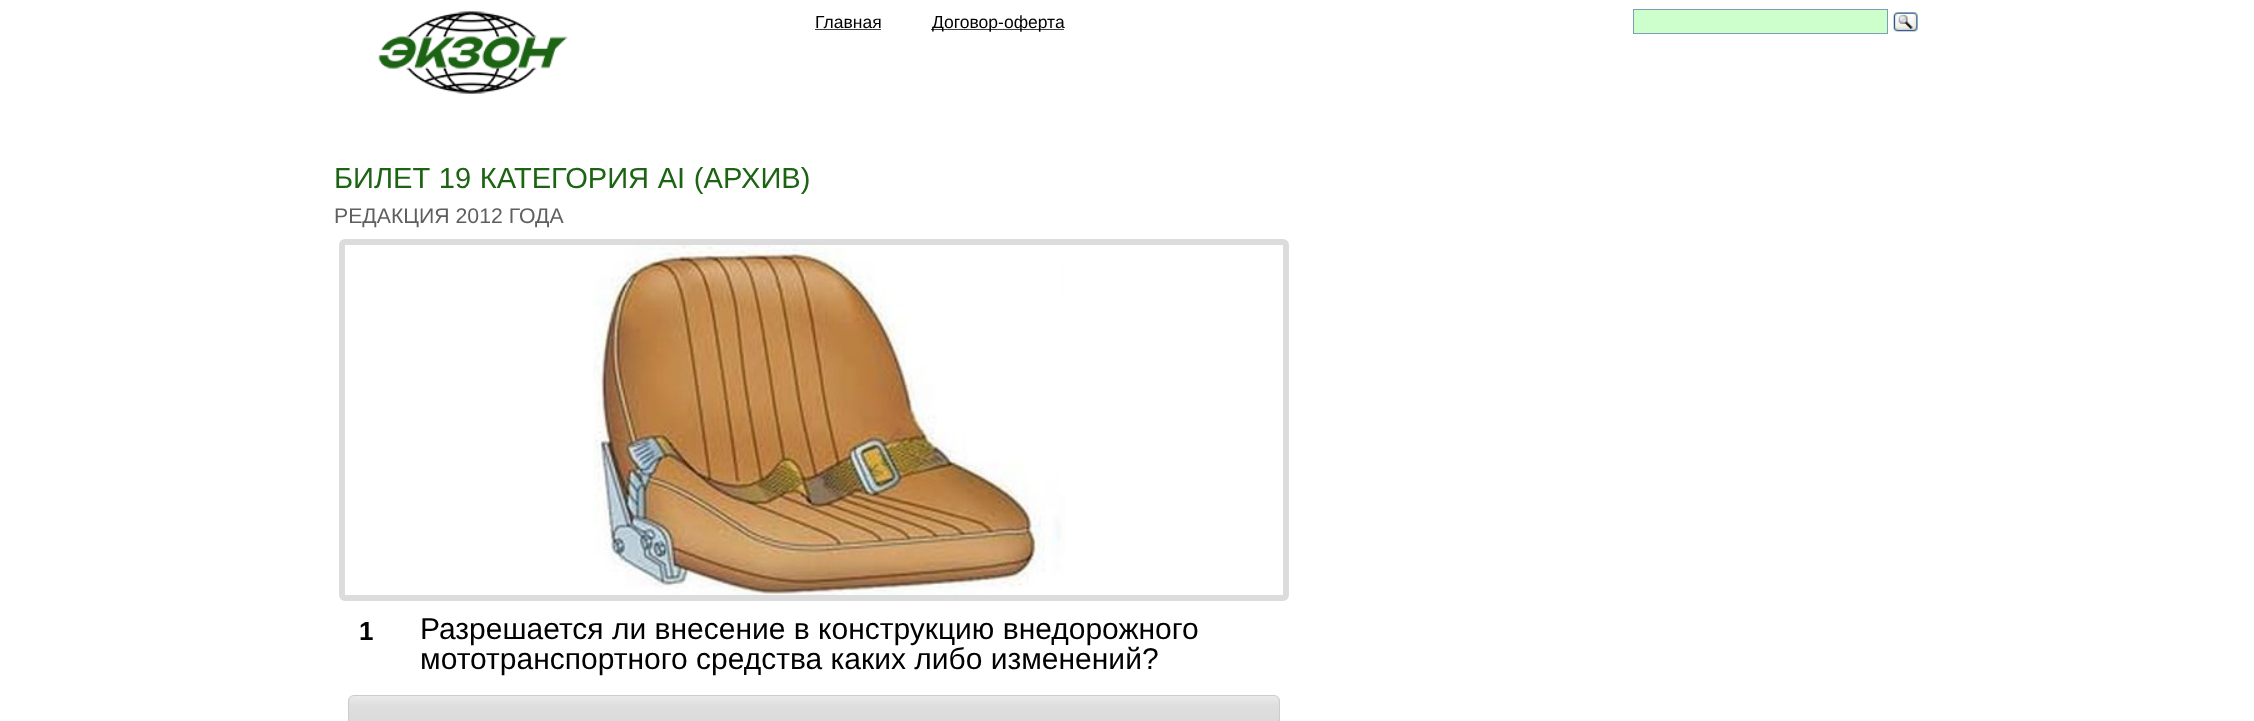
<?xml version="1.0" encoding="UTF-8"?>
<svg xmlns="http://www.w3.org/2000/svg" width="2254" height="721">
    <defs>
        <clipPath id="clip1"><rect x="348" y="695" width="932" height="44" rx="6"/></clipPath>
        <linearGradient id="g1" gradientUnits="userSpaceOnUse" x1="814" y1="696" x2="814" y2="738"><stop offset="0" stop-color="#EAEAEA"/><stop offset="0.23" stop-color="#DEDEDE"/><stop offset="0.82" stop-color="#D9D9D9"/><stop offset="1" stop-color="#CCCCCC"/></linearGradient>
    </defs>
    <rect width="100%" height="100%" fill="#FFFFFF"/>
    <image x="378" y="11" width="190" height="83" href="img_01.png"/>
    <rect x="815" y="29" width="66" height="1" fill="#3F3F3F"/>
    <text x="815" y="28" font-family="Liberation Sans" font-size="17.5" fill="#000000">Главная</text>
    <rect x="931" y="29" width="133" height="1" fill="#3F3F3F"/>
    <text x="932" y="28" font-family="Liberation Sans" font-size="17.5" fill="#000000">Договор-оферта</text>
    <rect x="1633.5" y="9.5" width="254" height="24" fill="#CCFFCC" stroke="#7F9DB9"/>
    <image x="1893" y="12" width="25" height="20" href="img_02.png"/>
    <text x="334" y="188" word-spacing="0.5" font-family="Liberation Sans" font-size="29.1" fill="#1D6314">БИЛЕТ 19 КАТЕГОРИЯ AI (АРХИВ)</text>
    <text x="334" y="223" font-family="Liberation Sans" font-size="21.25" fill="#5F5F5F">РЕДАКЦИЯ 2012 ГОДА</text>
    <text x="359" y="640" font-family="Liberation Sans" font-size="26" font-weight="700" fill="#000000">1</text>
    <rect x="342" y="242" width="944" height="356" rx="3" fill="none" stroke="#DCDCDC" stroke-width="6"/>
    <image x="593" y="245" width="472" height="350" href="img_03.png"/>
    <text font-family="Liberation Sans" font-size="30" fill="#000000">
        <tspan x="420" y="639">Разрешается ли внесение в конструкцию внедорожного</tspan>
        <tspan x="420" y="669">мототранспортного средства каких либо изменений?</tspan>
    </text>
    <g clip-path="url(#clip1)">
        <rect x="348" y="696" width="932" height="25" fill="url(#g1)"/>
    </g>
    <rect x="348.5" y="695.5" width="931" height="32" rx="5.5" fill="none" stroke="#CCCCCC"/>
</svg>
